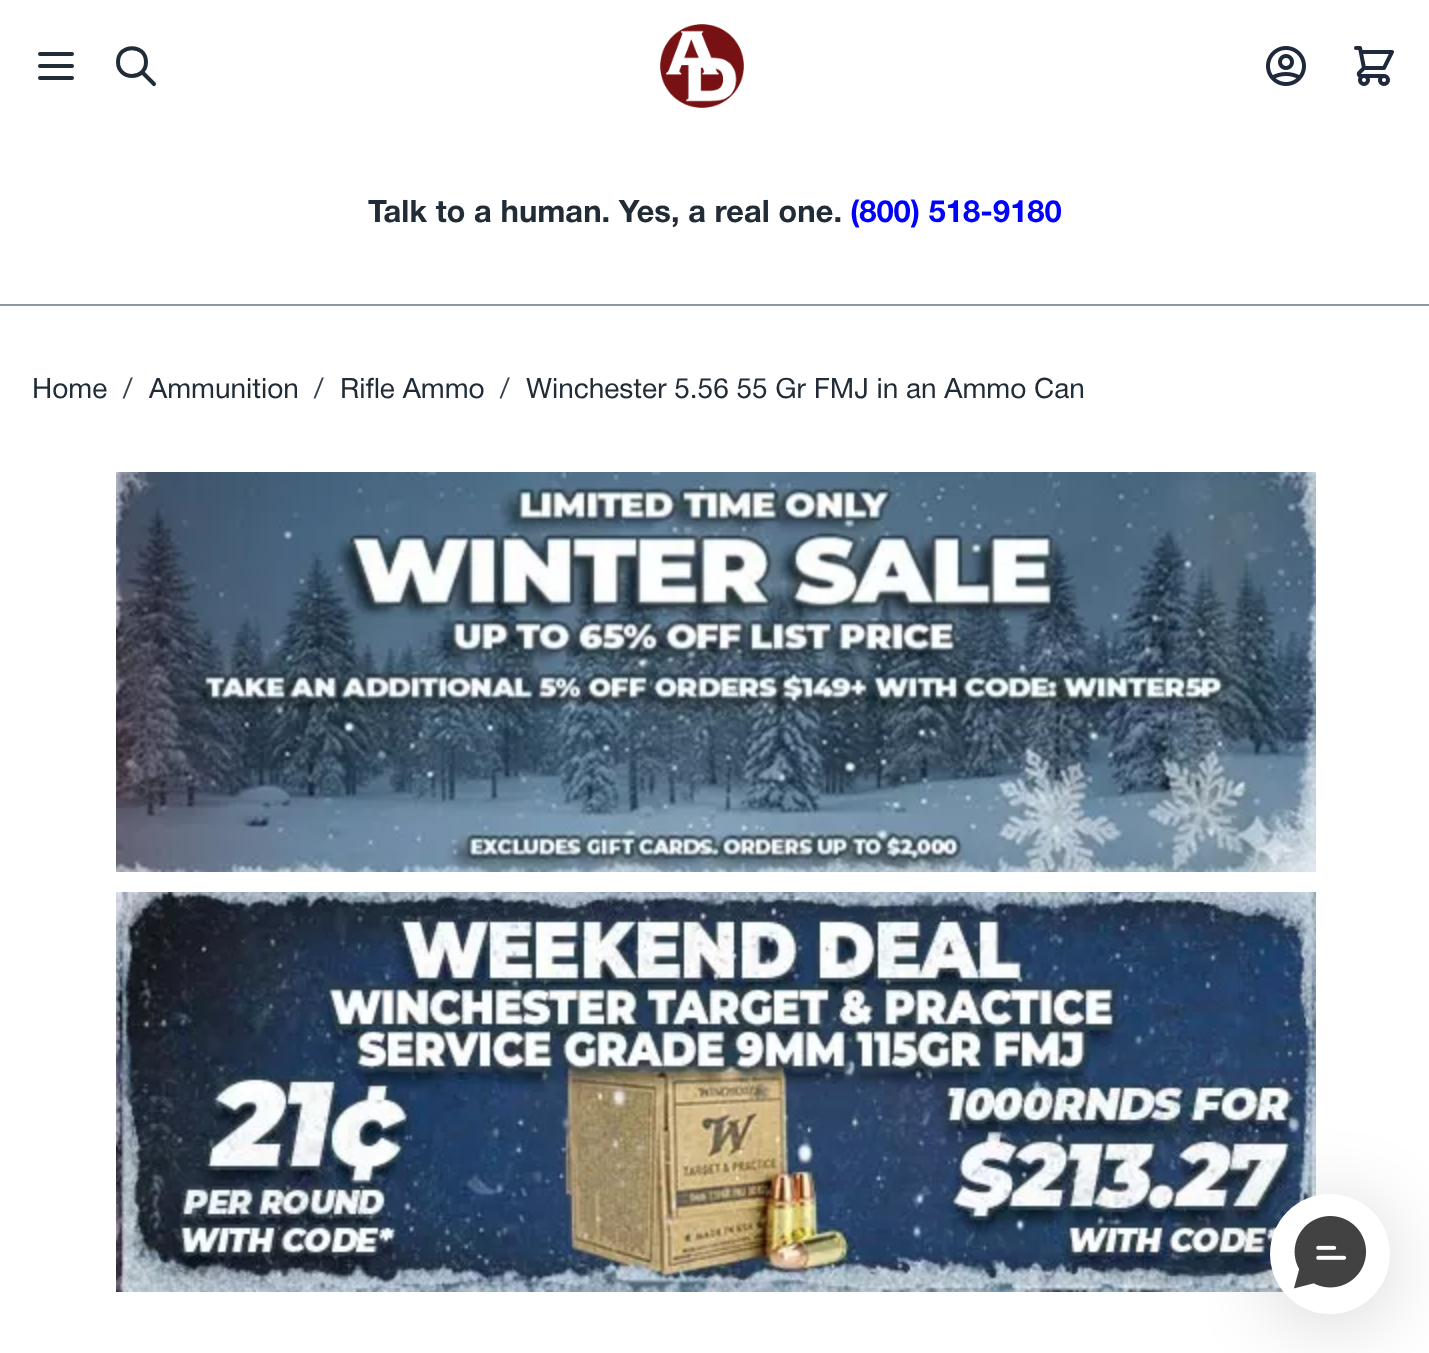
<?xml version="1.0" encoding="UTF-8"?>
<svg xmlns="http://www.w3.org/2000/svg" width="1429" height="1353">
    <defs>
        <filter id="blur1" x="-50%" y="-200%" width="200%" height="500%"><feGaussianBlur stdDeviation="40"/></filter>
    </defs>
    <rect width="100%" height="100%" fill="#FFFFFF"/>
    <rect x="0" y="304" width="1429" height="2" fill="#8A98A4"/>
    <path d="M 40 54 H 72 M 40 66 H 72 M 40 78 H 72" fill="none" stroke="#212C36" stroke-width="4" stroke-linecap="round" stroke-linejoin="round"/>
    <path d="M 154 84 L 142 72 M 146 62 C 146 80.5 118 80.5 118 62 C 118 43.5 146 43.5 146 62 Z" fill="none" stroke="#212C36" stroke-width="4" stroke-linecap="round" stroke-linejoin="round"/>
    <image x="660" y="24" width="84" height="84" href="img_01.png"/>
    <image x="1266" y="46" width="40" height="40" href="img_02.png"/>
    <image x="1354" y="46" width="40" height="40" href="img_03.png"/>
    <text x="368" y="222" font-family="Helvetica Neue" font-size="31" font-weight="700" fill="#212C36">Talk to a human. Yes, a real one.</text>
    <text x="850" y="222" font-family="Helvetica Neue" font-size="31" font-weight="700" fill="#0000FF">(800) 518-9180</text>
    <text x="32" y="398" font-family="Helvetica Neue" font-size="28" fill="#212C36">Home</text>
    <text x="123" y="398" font-family="Helvetica Neue" font-size="28" fill="#374151">/</text>
    <text x="149" y="398" font-family="Helvetica Neue" font-size="28" fill="#212C36">Ammunition</text>
    <text x="314" y="398" font-family="Helvetica Neue" font-size="28" fill="#374151">/</text>
    <text x="340" y="398" font-family="Helvetica Neue" font-size="28" fill="#212C36">Rifle Ammo</text>
    <text x="500" y="398" font-family="Helvetica Neue" font-size="28" fill="#374151">/</text>
    <text x="526" y="398" font-family="Helvetica Neue" font-size="28" fill="#212C36">Winchester 5.56 55 Gr FMJ in an Ammo Can</text>
    <image x="116" y="472" width="1200" height="400" href="img_04.png"/>
    <image x="116" y="892" width="1200" height="400" href="img_05.png"/>
    <rect x="1270" y="1204" width="120" height="120" rx="60" fill="#000000" fill-opacity="0.16" filter="url(#blur1)"/>
    <circle cx="1330" cy="1254" r="60" fill="#FFFFFF"/>
    <image x="1294" y="1216" width="73" height="73" href="img_06.png"/>
</svg>
